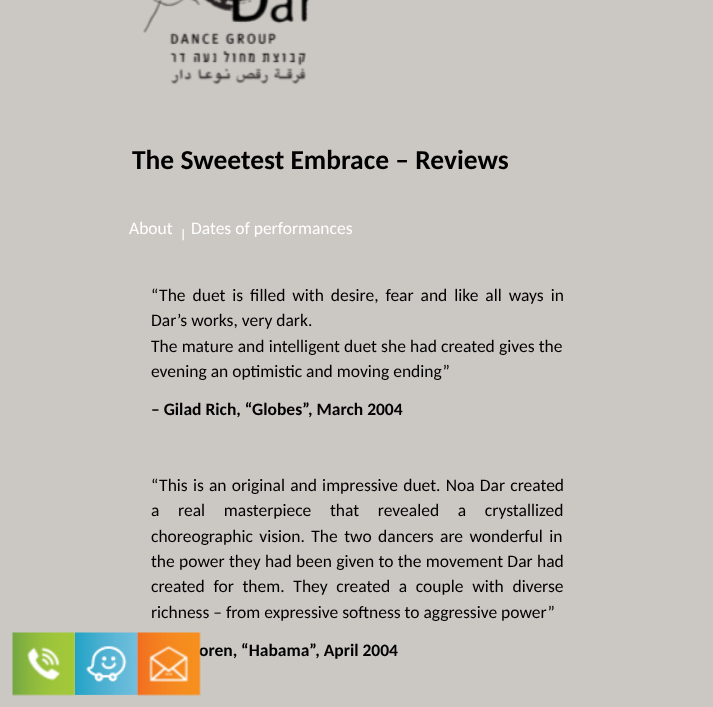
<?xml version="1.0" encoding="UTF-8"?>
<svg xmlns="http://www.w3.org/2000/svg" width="713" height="707">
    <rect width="100%" height="100%" fill="#CBC8C3"/>
    <image x="12" y="632" width="64" height="64" href="img_01.png"/>
    <image x="75" y="632" width="63" height="63" href="img_02.png"/>
    <text x="199" y="656" font-family="Carlito" font-size="17.5" font-weight="700" fill="#000000">oren, “Habama”, April 2004</text>
    <image x="137" y="632" width="64" height="64" href="img_03.png"/>
    <image x="143" y="0" width="166" height="85" href="img_04.png"/>
    <text x="132" y="169" font-family="Carlito" font-size="27.5" font-weight="700" fill="#000000">The Sweetest Embrace – Reviews</text>
    <text x="129" y="234" font-family="Carlito" font-size="17.5" fill="#FFFFFF">About</text>
    <image x="182" y="229" width="2" height="12" href="img_05.png"/>
    <text x="191" y="234" font-family="Carlito" font-size="17.5" fill="#FFFFFF">Dates of performances</text>
    <text font-family="Carlito" font-size="17.5" fill="#000000">
        <tspan x="151" y="301" word-spacing="3">“The duet is filled with desire, fear and like all ways in</tspan>
        <tspan x="151" y="326">Dar’s works, very dark.</tspan>
        <tspan x="151" y="352" word-spacing="0.25">The mature and intelligent duet she had created gives the</tspan>
        <tspan x="151" y="377">evening an optimistic and moving ending”</tspan>
    </text>
    <text x="151" y="415" font-family="Carlito" font-size="17.5" font-weight="700" fill="#000000">– Gilad Rich, “Globes”, March 2004</text>
    <text font-family="Carlito" font-size="17.5" fill="#000000">
        <tspan x="151" y="491" word-spacing="1.25">“This is an original and impressive duet. Noa Dar created</tspan>
        <tspan x="151" y="516" word-spacing="14.75">a real masterpiece that revealed a crystallized</tspan>
        <tspan x="151" y="542" word-spacing="2.5">choreographic vision. The two dancers are wonderful in</tspan>
        <tspan x="151" y="567" word-spacing="0.4">the power they had been given to the movement Dar had</tspan>
        <tspan x="151" y="592" word-spacing="4.75">created for them. They created a couple with diverse</tspan>
        <tspan x="151" y="618">richness – from expressive softness to aggressive power”</tspan>
    </text>
</svg>
